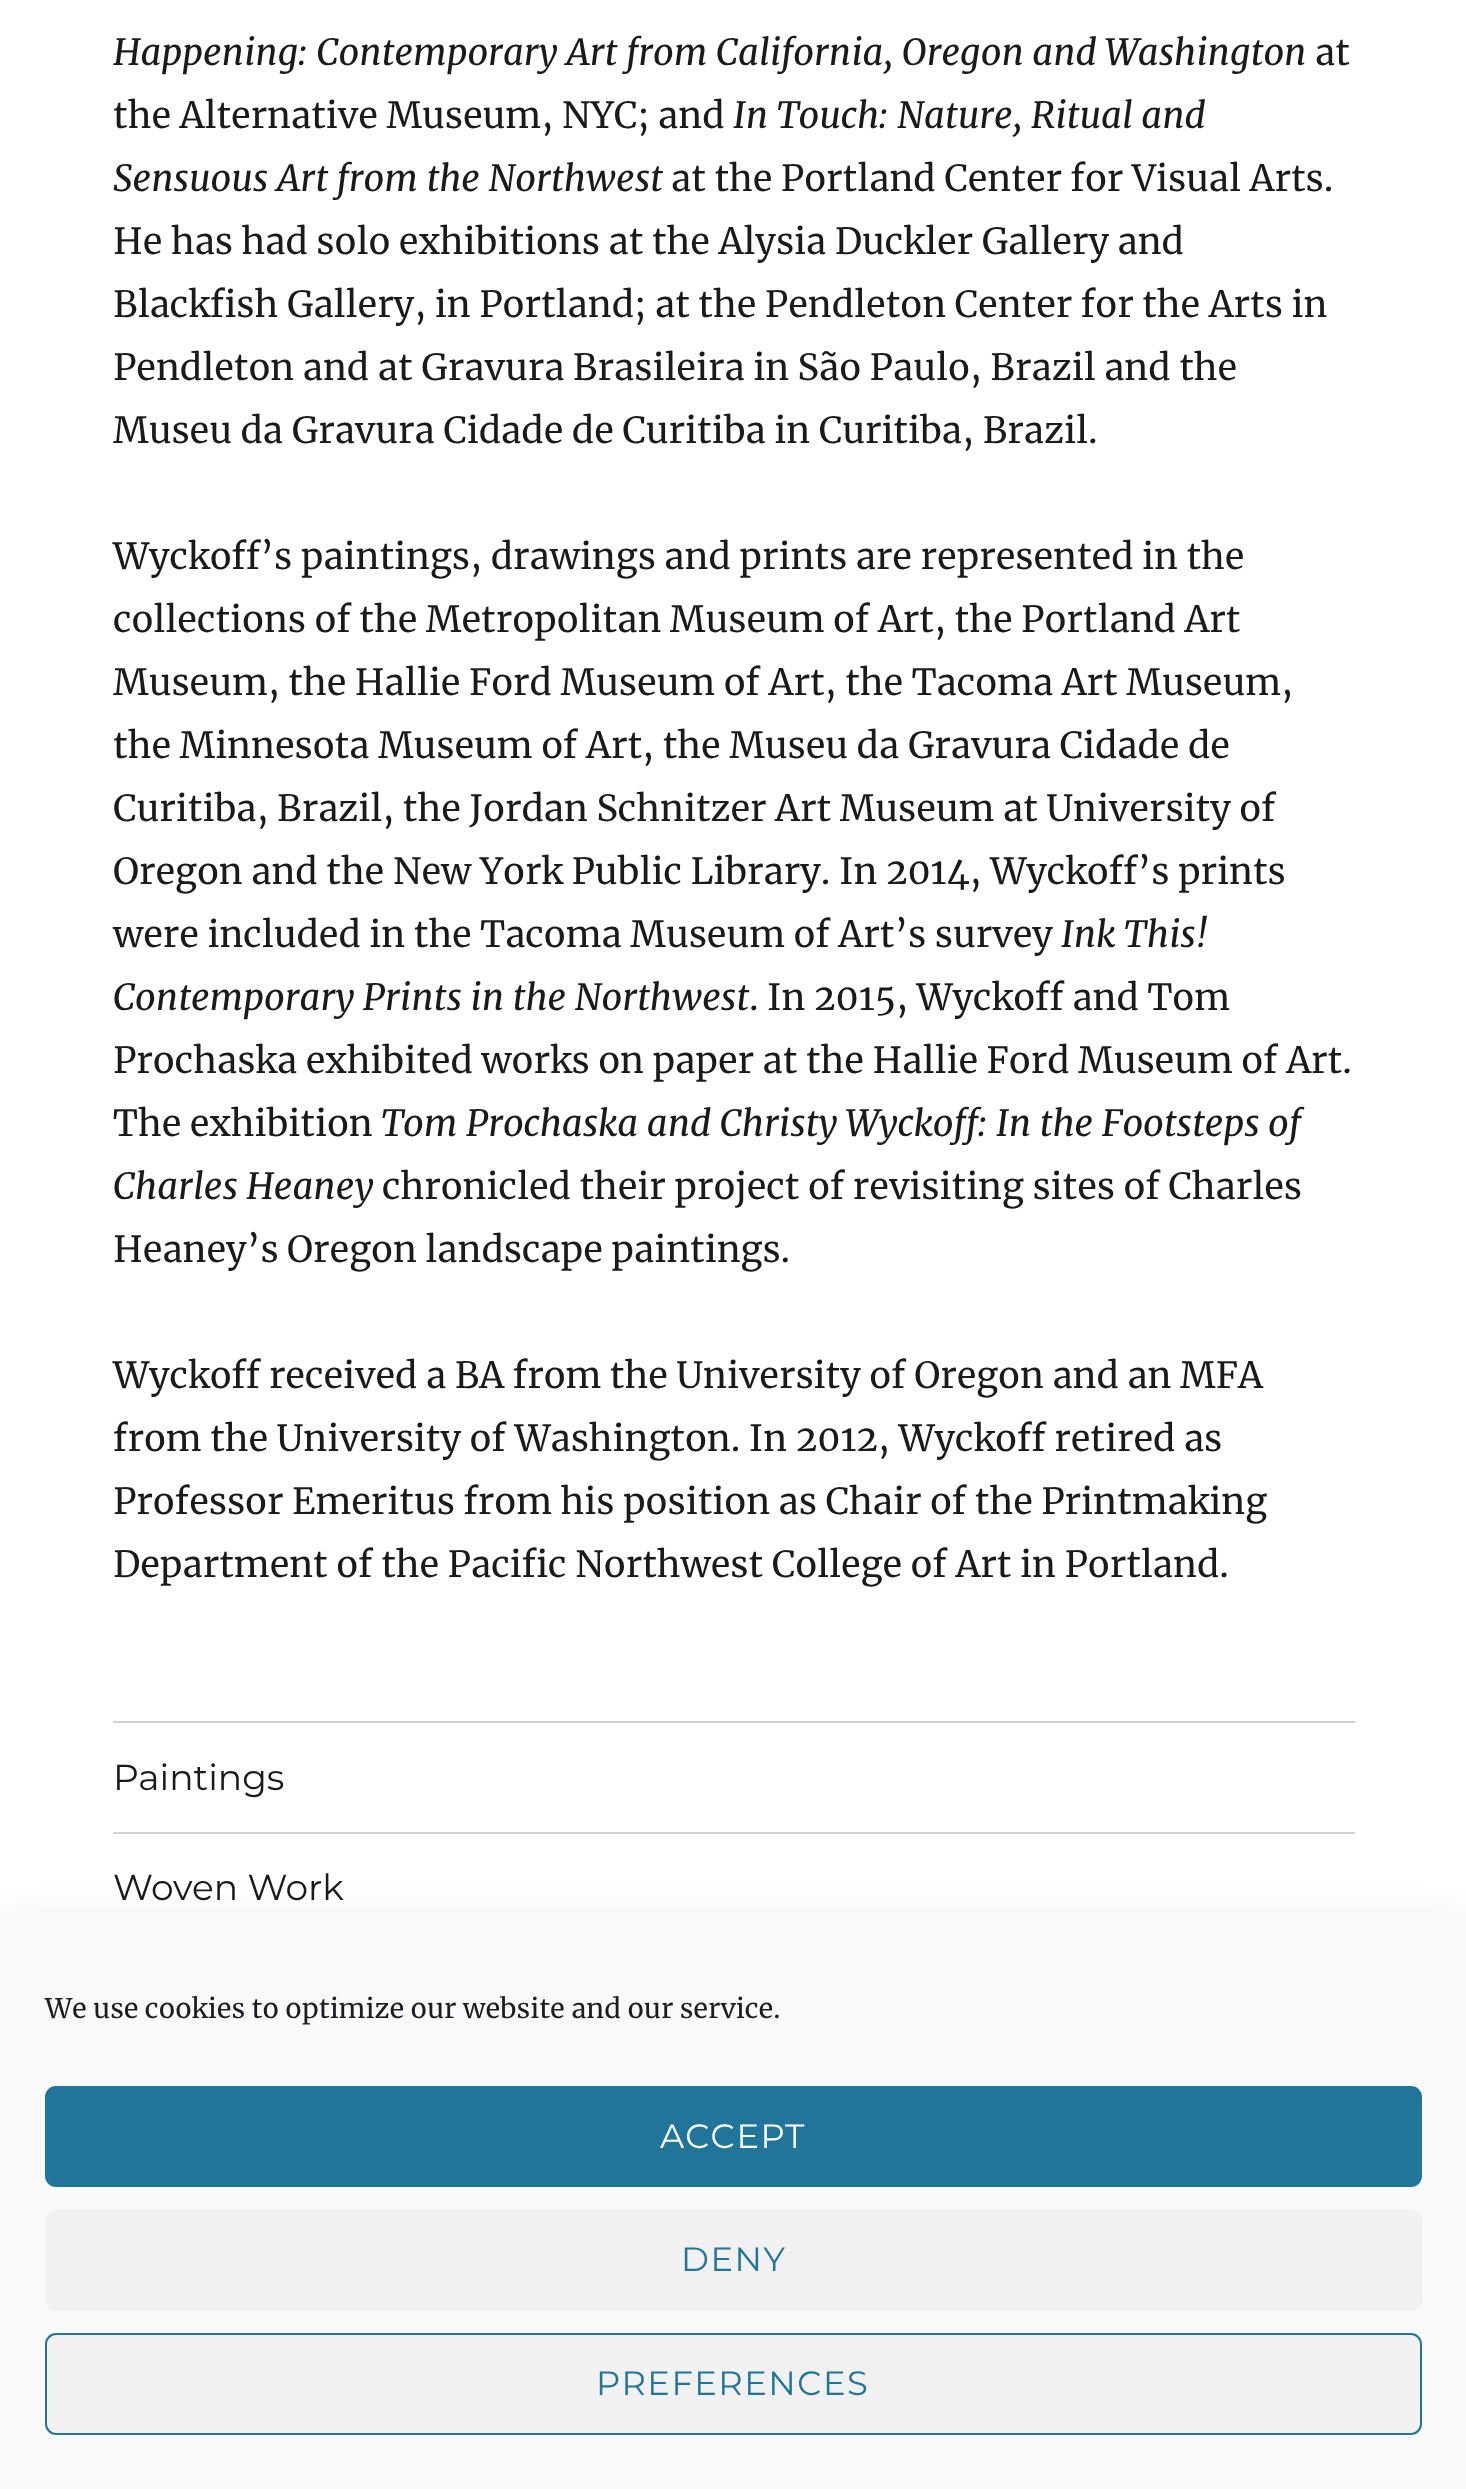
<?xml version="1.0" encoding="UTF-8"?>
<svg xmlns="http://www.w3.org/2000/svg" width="1466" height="2489">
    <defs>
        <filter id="blur1" x="-50%" y="-200%" width="200%" height="500%"><feGaussianBlur stdDeviation="22.5"/></filter>
    </defs>
    <rect width="100%" height="100%" fill="#FFFFFF"/>
    <text x="113" y="65" font-family="Merriweather" font-size="36" font-style="italic" fill="#1A1A1A">Happening: Contemporary Art from California, Oregon and Washington</text>
    <text x="1315" y="65" font-family="Merriweather" font-size="36" fill="#1A1A1A">at</text>
    <text x="113" y="128" font-family="Merriweather" font-size="36" fill="#1A1A1A">the Alternative Museum, NYC; and</text>
    <text x="733" y="128" font-family="Merriweather" font-size="36" font-style="italic" fill="#1A1A1A">In Touch: Nature, Ritual and</text>
    <text x="113" y="191" font-family="Merriweather" font-size="36" font-style="italic" fill="#1A1A1A">Sensuous Art from the Northwest</text>
    <text x="671" y="191" font-family="Merriweather" font-size="36" fill="#1A1A1A">at the Portland Center for Visual Arts.</text>
    <text font-family="Merriweather" font-size="36" fill="#1A1A1A">
        <tspan x="113" y="254">He has had solo exhibitions at the Alysia Duckler Gallery and</tspan>
        <tspan x="113" y="317">Blackfish Gallery, in Portland; at the Pendleton Center for the Arts in</tspan>
        <tspan x="113" y="380">Pendleton and at Gravura Brasileira in São Paulo, Brazil and the</tspan>
        <tspan x="113" y="443">Museu da Gravura Cidade de Curitiba in Curitiba, Brazil.</tspan>
    </text>
    <text font-family="Merriweather" font-size="36" fill="#1A1A1A">
        <tspan x="113" y="569">Wyckoff’s paintings, drawings and prints are represented in the</tspan>
        <tspan x="113" y="632">collections of the Metropolitan Museum of Art, the Portland Art</tspan>
        <tspan x="113" y="695">Museum, the Hallie Ford Museum of Art, the Tacoma Art Museum,</tspan>
        <tspan x="113" y="758">the Minnesota Museum of Art, the Museu da Gravura Cidade de</tspan>
        <tspan x="113" y="821">Curitiba, Brazil, the Jordan Schnitzer Art Museum at University of</tspan>
        <tspan x="113" y="884">Oregon and the New York Public Library. In 2014, Wyckoff’s prints</tspan>
        <tspan x="113" y="947">were included in the Tacoma Museum of Art’s survey</tspan>
    </text>
    <text x="1061" y="947" font-family="Merriweather" font-size="36" font-style="italic" fill="#1A1A1A">Ink This!</text>
    <text x="113" y="1010" font-family="Merriweather" font-size="36" font-style="italic" fill="#1A1A1A">Contemporary Prints in the Northwest</text>
    <text x="749" y="1010" font-family="Merriweather" font-size="36" fill="#1A1A1A">. In 2015, Wyckoff and Tom</text>
    <text font-family="Merriweather" font-size="36" fill="#1A1A1A">
        <tspan x="113" y="1073">Prochaska exhibited works on paper at the Hallie Ford Museum of Art.</tspan>
        <tspan x="113" y="1136">The exhibition</tspan>
    </text>
    <text x="381" y="1136" font-family="Merriweather" font-size="36" font-style="italic" fill="#1A1A1A">Tom Prochaska and Christy Wyckoff: In the Footsteps of</text>
    <text x="113" y="1199" font-family="Merriweather" font-size="36" font-style="italic" fill="#1A1A1A">Charles Heaney</text>
    <text x="382" y="1199" font-family="Merriweather" font-size="36" fill="#1A1A1A">chronicled their project of revisiting sites of Charles</text>
    <text x="113" y="1262" font-family="Merriweather" font-size="36" fill="#1A1A1A">Heaney’s Oregon landscape paintings.</text>
    <text font-family="Merriweather" font-size="36" fill="#1A1A1A">
        <tspan x="113" y="1388">Wyckoff received a BA from the University of Oregon and an MFA</tspan>
        <tspan x="113" y="1451">from the University of Washington. In 2012, Wyckoff retired as</tspan>
        <tspan x="113" y="1514">Professor Emeritus from his position as Chair of the Printmaking</tspan>
        <tspan x="113" y="1577">Department of the Pacific Northwest College of Art in Portland.</tspan>
    </text>
    <rect x="113" y="1721" width="1242" height="2" fill="#D1D1D1"/>
    <text x="113" y="1790" font-family="Montserrat" font-size="36" font-weight="100" fill="#1A1A1A">Paintings</text>
    <rect x="113" y="1832" width="1242" height="2" fill="#D1D1D1"/>
    <text x="113" y="1900" font-family="Montserrat" font-size="36" font-weight="100" fill="#1A1A1A">Woven Work</text>
    <rect x="0" y="1933" width="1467" height="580" fill="#000000" fill-opacity="0.19" filter="url(#blur1)"/>
    <rect x="0" y="1912" width="1466" height="577" fill="#F9F9F9"/>
    <text x="45" y="2018" font-family="Merriweather" font-size="27" fill="#191E23">We use cookies to optimize our website and our service.</text>
    <rect x="46" y="2087" width="1375" height="99" rx="10" fill="#21759B" stroke="#21759B" stroke-width="2"/>
    <text x="660" y="2148" font-family="Montserrat" font-size="33.75" font-weight="100" letter-spacing="1.5" fill="#FFFFFF">ACCEPT</text>
    <rect x="45" y="2210" width="1377" height="101" rx="11" fill="#F1F1F1"/>
    <text x="681" y="2271" font-family="Montserrat" font-size="33.75" font-weight="100" letter-spacing="1.5" fill="#21759B">DENY</text>
    <rect x="46" y="2334" width="1375" height="100" rx="10" fill="#F1F1F1" stroke="#21759B" stroke-width="2"/>
    <text x="596" y="2395" font-family="Montserrat" font-size="33.75" font-weight="100" letter-spacing="1.5" fill="#21759B">PREFERENCES</text>
</svg>
